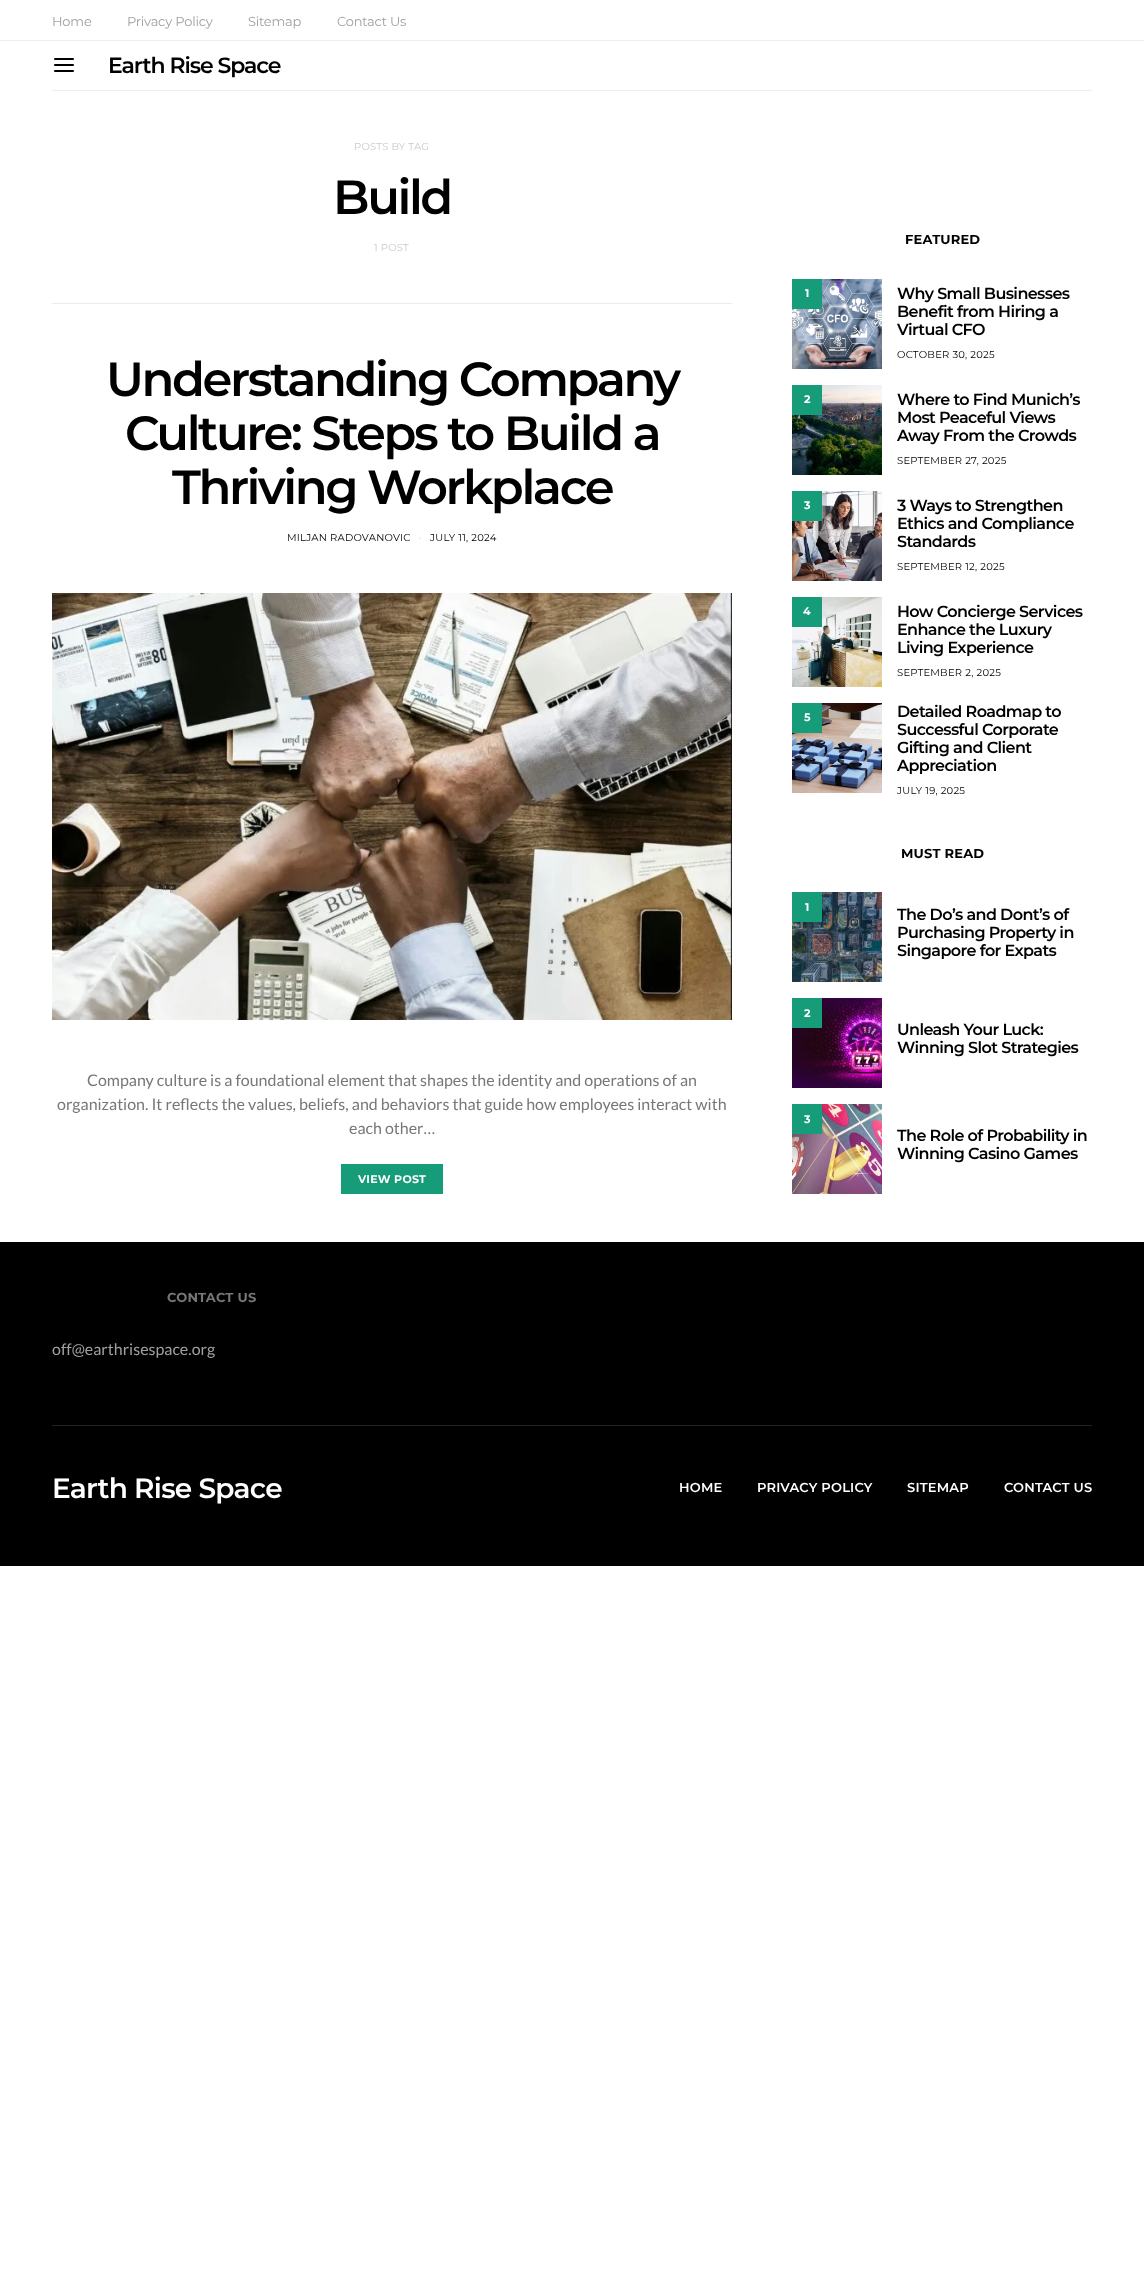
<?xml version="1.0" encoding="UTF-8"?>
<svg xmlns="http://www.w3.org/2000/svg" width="1144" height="2284">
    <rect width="100%" height="100%" fill="#FFFFFF"/>
    <rect x="0" y="40" width="1144" height="1" fill="#EEEEEE"/>
    <text x="52" y="26" font-family="Montserrat" font-size="13" letter-spacing="-0.2" fill="#A0A0A0">Home</text>
    <text x="127" y="26" font-family="Montserrat" font-size="13" letter-spacing="-0.2" fill="#A0A0A0">Privacy Policy</text>
    <text x="248" y="26" font-family="Montserrat" font-size="13" letter-spacing="-0.2" fill="#A0A0A0">Sitemap</text>
    <text x="337" y="26" font-family="Montserrat" font-size="13" letter-spacing="-0.2" fill="#A0A0A0">Contact Us</text>
    <rect x="52" y="90" width="1040" height="1" fill="#EEEEEE"/>
    <image x="54" y="58" width="20" height="14" href="img_01.png"/>
    <text x="108" y="73" font-family="Montserrat" font-size="22" font-weight="600" letter-spacing="-1.1" fill="#000000">Earth Rise Space</text>
    <text x="354" y="150" font-family="Montserrat" font-size="10" letter-spacing="0.25" fill="#C9C9C9">POSTS BY TAG</text>
    <text x="333" y="214" font-family="Montserrat" font-size="48" font-weight="600" letter-spacing="-2.4" fill="#000000">Build</text>
    <text x="374" y="251" font-family="Montserrat" font-size="10" letter-spacing="0.25" fill="#C9C9C9">1 POST</text>
    <rect x="52" y="303" width="680" height="1" fill="#E9ECEF"/>
    <text x="106" y="396" font-family="Montserrat" font-size="48" font-weight="600" letter-spacing="-2.4" fill="#000000">Understanding Company</text>
    <text x="125" y="450" font-family="Montserrat" font-size="48" font-weight="600" letter-spacing="-2.4" fill="#000000">Culture: Steps to Build a</text>
    <text x="172" y="504" font-family="Montserrat" font-size="48" font-weight="600" letter-spacing="-2.4" fill="#000000">Thriving Workplace</text>
    <text x="287" y="541" font-family="Montserrat" font-size="10" letter-spacing="0.25" fill="#000000">MILJAN RADOVANOVIC</text>
    <text x="419" y="541" font-family="Montserrat" font-size="10" letter-spacing="0.25" fill="#C9C9C9">·</text>
    <text x="430" y="541" font-family="Montserrat" font-size="10" letter-spacing="0.25" fill="#000000">JULY 11, 2024</text>
    <image x="52" y="593" width="680" height="427" href="img_02.png"/>
    <text x="87" y="1086" font-family="Lato" font-size="16" fill="#777777">Company culture is a foundational element that shapes the identity and operations of an</text>
    <text x="57" y="1110" font-family="Lato" font-size="16" fill="#777777">organization. It reflects the values, beliefs, and behaviors that guide how employees interact with</text>
    <text x="349" y="1134" font-family="Lato" font-size="16" fill="#777777">each other…</text>
    <rect x="341" y="1164" width="102" height="30" fill="#169C78"/>
    <text x="358" y="1183" font-family="Montserrat" font-size="11" font-weight="700" letter-spacing="0.25" fill="#FFFFFF">VIEW POST</text>
    <text x="905" y="244" font-family="Montserrat" font-size="13" font-weight="700" letter-spacing="0.2" fill="#000000">FEATURED</text>
    <image x="792" y="279" width="90" height="90" href="img_03.png"/>
    <rect x="792" y="279" width="30" height="30" fill="#169C78"/>
    <text x="805" y="297" font-family="Montserrat" font-size="11" font-weight="700" letter-spacing="0.25" fill="#FFFFFF">1</text>
    <text font-family="Montserrat" font-size="16" font-weight="600" letter-spacing="-0.6" fill="#000000">
        <tspan x="897" y="299">Why Small Businesses</tspan>
        <tspan x="897" y="317">Benefit from Hiring a</tspan>
        <tspan x="897" y="335">Virtual CFO</tspan>
    </text>
    <text x="897" y="358" font-family="Montserrat" font-size="10" letter-spacing="0.25" fill="#000000">OCTOBER 30, 2025</text>
    <image x="792" y="385" width="90" height="90" href="img_04.png"/>
    <rect x="792" y="385" width="30" height="30" fill="#169C78"/>
    <text x="804" y="403" font-family="Montserrat" font-size="11" font-weight="700" letter-spacing="0.25" fill="#FFFFFF">2</text>
    <text font-family="Montserrat" font-size="16" font-weight="600" letter-spacing="-0.6" fill="#000000">
        <tspan x="897" y="405">Where to Find Munich’s</tspan>
        <tspan x="897" y="423">Most Peaceful Views</tspan>
        <tspan x="897" y="441">Away From the Crowds</tspan>
    </text>
    <text x="897" y="464" font-family="Montserrat" font-size="10" letter-spacing="0.25" fill="#000000">SEPTEMBER 27, 2025</text>
    <image x="792" y="491" width="90" height="90" href="img_05.png"/>
    <rect x="792" y="491" width="30" height="30" fill="#169C78"/>
    <text x="804" y="509" font-family="Montserrat" font-size="11" font-weight="700" letter-spacing="0.25" fill="#FFFFFF">3</text>
    <text font-family="Montserrat" font-size="16" font-weight="600" letter-spacing="-0.6" fill="#000000">
        <tspan x="897" y="511">3 Ways to Strengthen</tspan>
        <tspan x="897" y="529">Ethics and Compliance</tspan>
        <tspan x="897" y="547">Standards</tspan>
    </text>
    <text x="897" y="570" font-family="Montserrat" font-size="10" letter-spacing="0.25" fill="#000000">SEPTEMBER 12, 2025</text>
    <image x="792" y="597" width="90" height="90" href="img_06.png"/>
    <rect x="792" y="597" width="30" height="30" fill="#169C78"/>
    <text x="803" y="615" font-family="Montserrat" font-size="11" font-weight="700" letter-spacing="0.25" fill="#FFFFFF">4</text>
    <text font-family="Montserrat" font-size="16" font-weight="600" letter-spacing="-0.6" fill="#000000">
        <tspan x="897" y="617">How Concierge Services</tspan>
        <tspan x="897" y="635">Enhance the Luxury</tspan>
        <tspan x="897" y="653">Living Experience</tspan>
    </text>
    <text x="897" y="676" font-family="Montserrat" font-size="10" letter-spacing="0.25" fill="#000000">SEPTEMBER 2, 2025</text>
    <image x="792" y="703" width="90" height="90" href="img_07.png"/>
    <rect x="792" y="703" width="30" height="30" fill="#169C78"/>
    <text x="804" y="721" font-family="Montserrat" font-size="11" font-weight="700" letter-spacing="0.25" fill="#FFFFFF">5</text>
    <text font-family="Montserrat" font-size="16" font-weight="600" letter-spacing="-0.6" fill="#000000">
        <tspan x="897" y="717">Detailed Roadmap to</tspan>
        <tspan x="897" y="735">Successful Corporate</tspan>
        <tspan x="897" y="753">Gifting and Client</tspan>
        <tspan x="897" y="771">Appreciation</tspan>
    </text>
    <text x="897" y="794" font-family="Montserrat" font-size="10" letter-spacing="0.25" fill="#000000">JULY 19, 2025</text>
    <text x="901" y="858" font-family="Montserrat" font-size="13" font-weight="700" letter-spacing="0.2" fill="#000000">MUST READ</text>
    <image x="792" y="892" width="90" height="90" href="img_08.png"/>
    <rect x="792" y="892" width="30" height="30" fill="#169C78"/>
    <text x="805" y="911" font-family="Montserrat" font-size="11" font-weight="700" letter-spacing="0.25" fill="#FFFFFF">1</text>
    <text font-family="Montserrat" font-size="16" font-weight="600" letter-spacing="-0.6" fill="#000000">
        <tspan x="897" y="920">The Do’s and Dont’s of</tspan>
        <tspan x="897" y="938">Purchasing Property in</tspan>
        <tspan x="897" y="956">Singapore for Expats</tspan>
    </text>
    <image x="792" y="998" width="90" height="90" href="img_09.png"/>
    <rect x="792" y="998" width="30" height="30" fill="#169C78"/>
    <text x="804" y="1017" font-family="Montserrat" font-size="11" font-weight="700" letter-spacing="0.25" fill="#FFFFFF">2</text>
    <text font-family="Montserrat" font-size="16" font-weight="600" letter-spacing="-0.6" fill="#000000">
        <tspan x="897" y="1035">Unleash Your Luck:</tspan>
        <tspan x="897" y="1053">Winning Slot Strategies</tspan>
    </text>
    <image x="792" y="1104" width="90" height="90" href="img_10.png"/>
    <rect x="792" y="1104" width="30" height="30" fill="#169C78"/>
    <text x="804" y="1123" font-family="Montserrat" font-size="11" font-weight="700" letter-spacing="0.25" fill="#FFFFFF">3</text>
    <text font-family="Montserrat" font-size="16" font-weight="600" letter-spacing="-0.6" fill="#000000">
        <tspan x="897" y="1141">The Role of Probability in</tspan>
        <tspan x="897" y="1159">Winning Casino Games</tspan>
    </text>
    <rect x="0" y="1242" width="1144" height="324" fill="#000000"/>
    <text x="167" y="1302" font-family="Montserrat" font-size="13" font-weight="700" letter-spacing="0.2" fill="#777777">CONTACT US</text>
    <text x="52" y="1355" font-family="Lato" font-size="16" fill="#A0A0A0">off@earthrisespace.org</text>
    <rect x="52" y="1425" width="1040" height="1" fill="#242424"/>
    <text x="52" y="1498" font-family="Montserrat" font-size="28" font-weight="600" letter-spacing="-0.75" fill="#FFFFFF">Earth Rise Space</text>
    <text x="679" y="1492" font-family="Montserrat" font-size="13" font-weight="600" letter-spacing="0.2" fill="#FFFFFF">HOME</text>
    <text x="757" y="1492" font-family="Montserrat" font-size="13" font-weight="600" letter-spacing="0.2" fill="#FFFFFF">PRIVACY POLICY</text>
    <text x="907" y="1492" font-family="Montserrat" font-size="13" font-weight="600" letter-spacing="0.2" fill="#FFFFFF">SITEMAP</text>
    <text x="1004" y="1492" font-family="Montserrat" font-size="13" font-weight="600" letter-spacing="0.2" fill="#FFFFFF">CONTACT US</text>
</svg>
